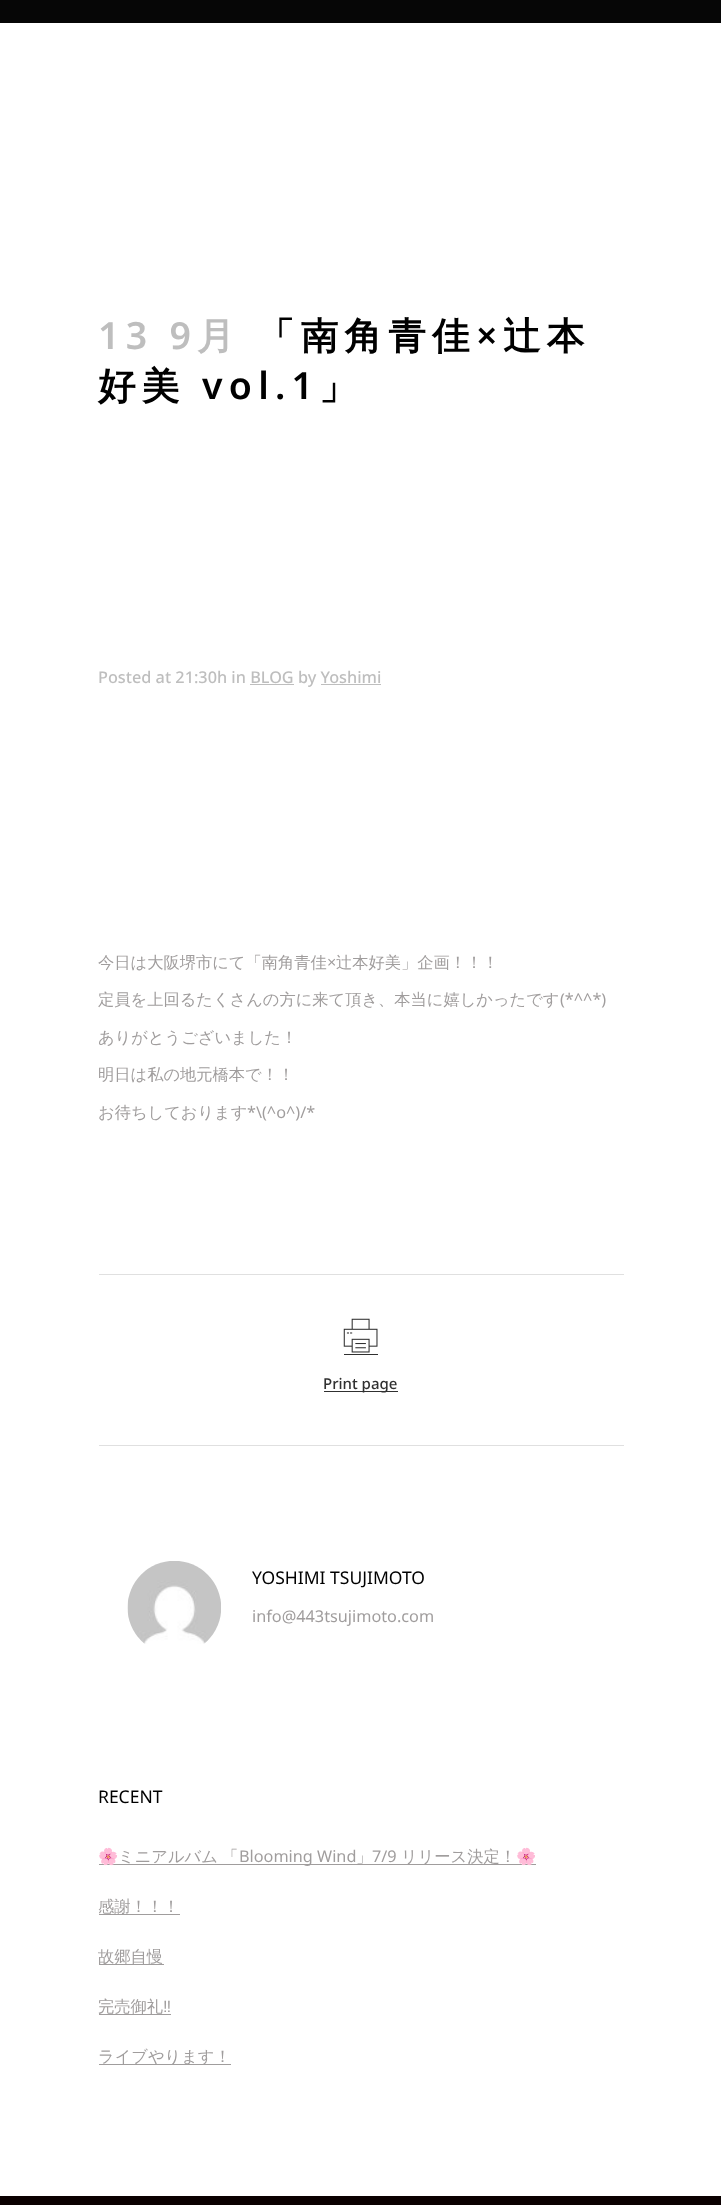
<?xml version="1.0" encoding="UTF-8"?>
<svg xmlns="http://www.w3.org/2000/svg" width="721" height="2205">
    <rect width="100%" height="100%" fill="#FFFFFF"/>
    <rect x="0" y="0" width="721" height="23" fill="#060606"/>
    <text x="98" y="349" font-family="Noto Sans" font-size="37.5" font-weight="600" letter-spacing="6.25" fill="#BEBEBE">13 9</text>
    <text x="197" y="349" font-family="WenQuanYi Zen Hei" font-size="37.5" font-weight="700" letter-spacing="6.25" fill="#BEBEBE">月</text>
    <text x="257" y="349" font-family="WenQuanYi Zen Hei" font-size="37.5" font-weight="700" letter-spacing="6.25" fill="#000000">「南角青佳</text>
    <text x="476" y="349" font-family="Noto Sans" font-size="37.5" font-weight="600" letter-spacing="6.25" fill="#000000">×</text>
    <text x="503" y="349" font-family="WenQuanYi Zen Hei" font-size="37.5" font-weight="700" letter-spacing="6.25" fill="#000000">辻本</text>
    <text x="98" y="399" font-family="WenQuanYi Zen Hei" font-size="37.5" font-weight="700" letter-spacing="6.25" fill="#000000">好美</text>
    <text x="202" y="399" font-family="Noto Sans" font-size="37.5" font-weight="600" letter-spacing="6.25" fill="#000000">vol.1</text>
    <text x="319" y="399" font-family="WenQuanYi Zen Hei" font-size="37.5" font-weight="700" letter-spacing="6.25" fill="#000000">」</text>
    <text x="98" y="683" font-family="Noto Sans" font-size="16.25" font-weight="500" fill="#BEBEBE">Posted at 21:30h in BLOG by Yoshimi</text>
    <rect x="250" y="684" width="44" height="1" fill="#BEBEBE"/>
    <rect x="321" y="684" width="60" height="1" fill="#BEBEBE"/>
    <text x="98" y="968" font-family="WenQuanYi Zen Hei" font-size="16.25" font-weight="500" fill="#A09D9D">今日は大阪堺市にて「南角青佳</text>
    <text x="327" y="968" font-family="Noto Sans" font-size="16.25" fill="#A09D9D">×</text>
    <text x="336" y="968" font-family="WenQuanYi Zen Hei" font-size="16.25" font-weight="500" fill="#A09D9D">辻本好美」企画！！！</text>
    <text x="98" y="1005" font-family="WenQuanYi Zen Hei" font-size="16.25" font-weight="500" fill="#A09D9D">定員を上回るたくさんの方に来て頂き、本当に嬉しかったです</text>
    <text x="560" y="1005" font-family="Noto Sans" font-size="16.25" fill="#A09D9D">(*^^*)</text>
    <text x="98" y="1043" font-family="WenQuanYi Zen Hei" font-size="16.25" font-weight="500" fill="#A09D9D">ありがとうございました！</text>
    <text x="98" y="1080" font-family="WenQuanYi Zen Hei" font-size="16.25" font-weight="500" fill="#A09D9D">明日は私の地元橋本で！！</text>
    <text x="98" y="1118" font-family="WenQuanYi Zen Hei" font-size="16.25" font-weight="500" fill="#A09D9D">お待ちしております</text>
    <text x="247" y="1118" font-family="Noto Sans" font-size="16.25" fill="#A09D9D">*\(^o^)/*</text>
    <rect x="99" y="1274" width="525" height="1" fill="#E0E0E0"/>
    <rect x="99" y="1445" width="525" height="1" fill="#E0E0E0"/>
    <image x="343" y="1318" width="35" height="35" href="img_01.png"/>
    <rect x="344" y="1354" width="34" height="1" fill="#303030"/>
    <rect x="324" y="1391" width="74" height="1" fill="#303030"/>
    <text x="323" y="1389" font-family="Noto Sans" font-size="15" font-weight="500" fill="#303030">Print page</text>
    <image x="127" y="1561" width="94" height="83" href="img_02.png"/>
    <text x="252" y="1584" font-family="Noto Sans" font-size="17.5" fill="#000000">YOSHIMI TSUJIMOTO</text>
    <text x="252" y="1622" font-family="Noto Sans" font-size="16.25" fill="#A09D9D">info@443tsujimoto.com</text>
    <text x="98" y="1803" font-family="Noto Sans" font-size="17.5" fill="#000000">RECENT</text>
    <rect x="99" y="1864" width="437" height="1" fill="#A09D9D"/>
    <text x="98" y="1862" font-family="Noto Color Emoji" font-size="16.25" fill="#A09D9D">🌸</text>
    <text x="118" y="1862" font-family="WenQuanYi Zen Hei" font-size="16.25" font-weight="500" fill="#A09D9D">ミニアルバム</text>
    <text x="222" y="1862" font-family="WenQuanYi Zen Hei" font-size="16.25" font-weight="500" fill="#A09D9D">「</text>
    <text x="239" y="1862" font-family="Noto Sans" font-size="16.25" fill="#A09D9D">Blooming Wind</text>
    <text x="356" y="1862" font-family="WenQuanYi Zen Hei" font-size="16.25" font-weight="500" fill="#A09D9D">」</text>
    <text x="372" y="1862" font-family="Noto Sans" font-size="16.25" fill="#A09D9D">7/9</text>
    <text x="401" y="1862" font-family="WenQuanYi Zen Hei" font-size="16.25" font-weight="500" fill="#A09D9D">リリース決定！</text>
    <text x="516" y="1862" font-family="Noto Color Emoji" font-size="16.25" fill="#A09D9D">🌸</text>
    <rect x="99" y="1914" width="81" height="1" fill="#A09D9D"/>
    <text x="98" y="1912" font-family="WenQuanYi Zen Hei" font-size="16.25" font-weight="500" fill="#A09D9D">感謝！！！</text>
    <rect x="99" y="1964" width="65" height="1" fill="#A09D9D"/>
    <text x="98" y="1962" font-family="WenQuanYi Zen Hei" font-size="16.25" font-weight="500" fill="#A09D9D">故郷自慢</text>
    <rect x="99" y="2014" width="72" height="1" fill="#A09D9D"/>
    <text x="98" y="2012" font-family="WenQuanYi Zen Hei" font-size="16.25" font-weight="500" fill="#A09D9D">完売御礼</text>
    <text x="163" y="2012" font-family="Liberation Sans" font-size="16.25" fill="#A09D9D">‼︎</text>
    <rect x="99" y="2064" width="132" height="1" fill="#A09D9D"/>
    <text x="98" y="2062" font-family="WenQuanYi Zen Hei" font-size="16.25" font-weight="500" fill="#A09D9D">ライブやります！</text>
    <rect x="0" y="2196" width="721" height="9" fill="#0A0000"/>
</svg>
